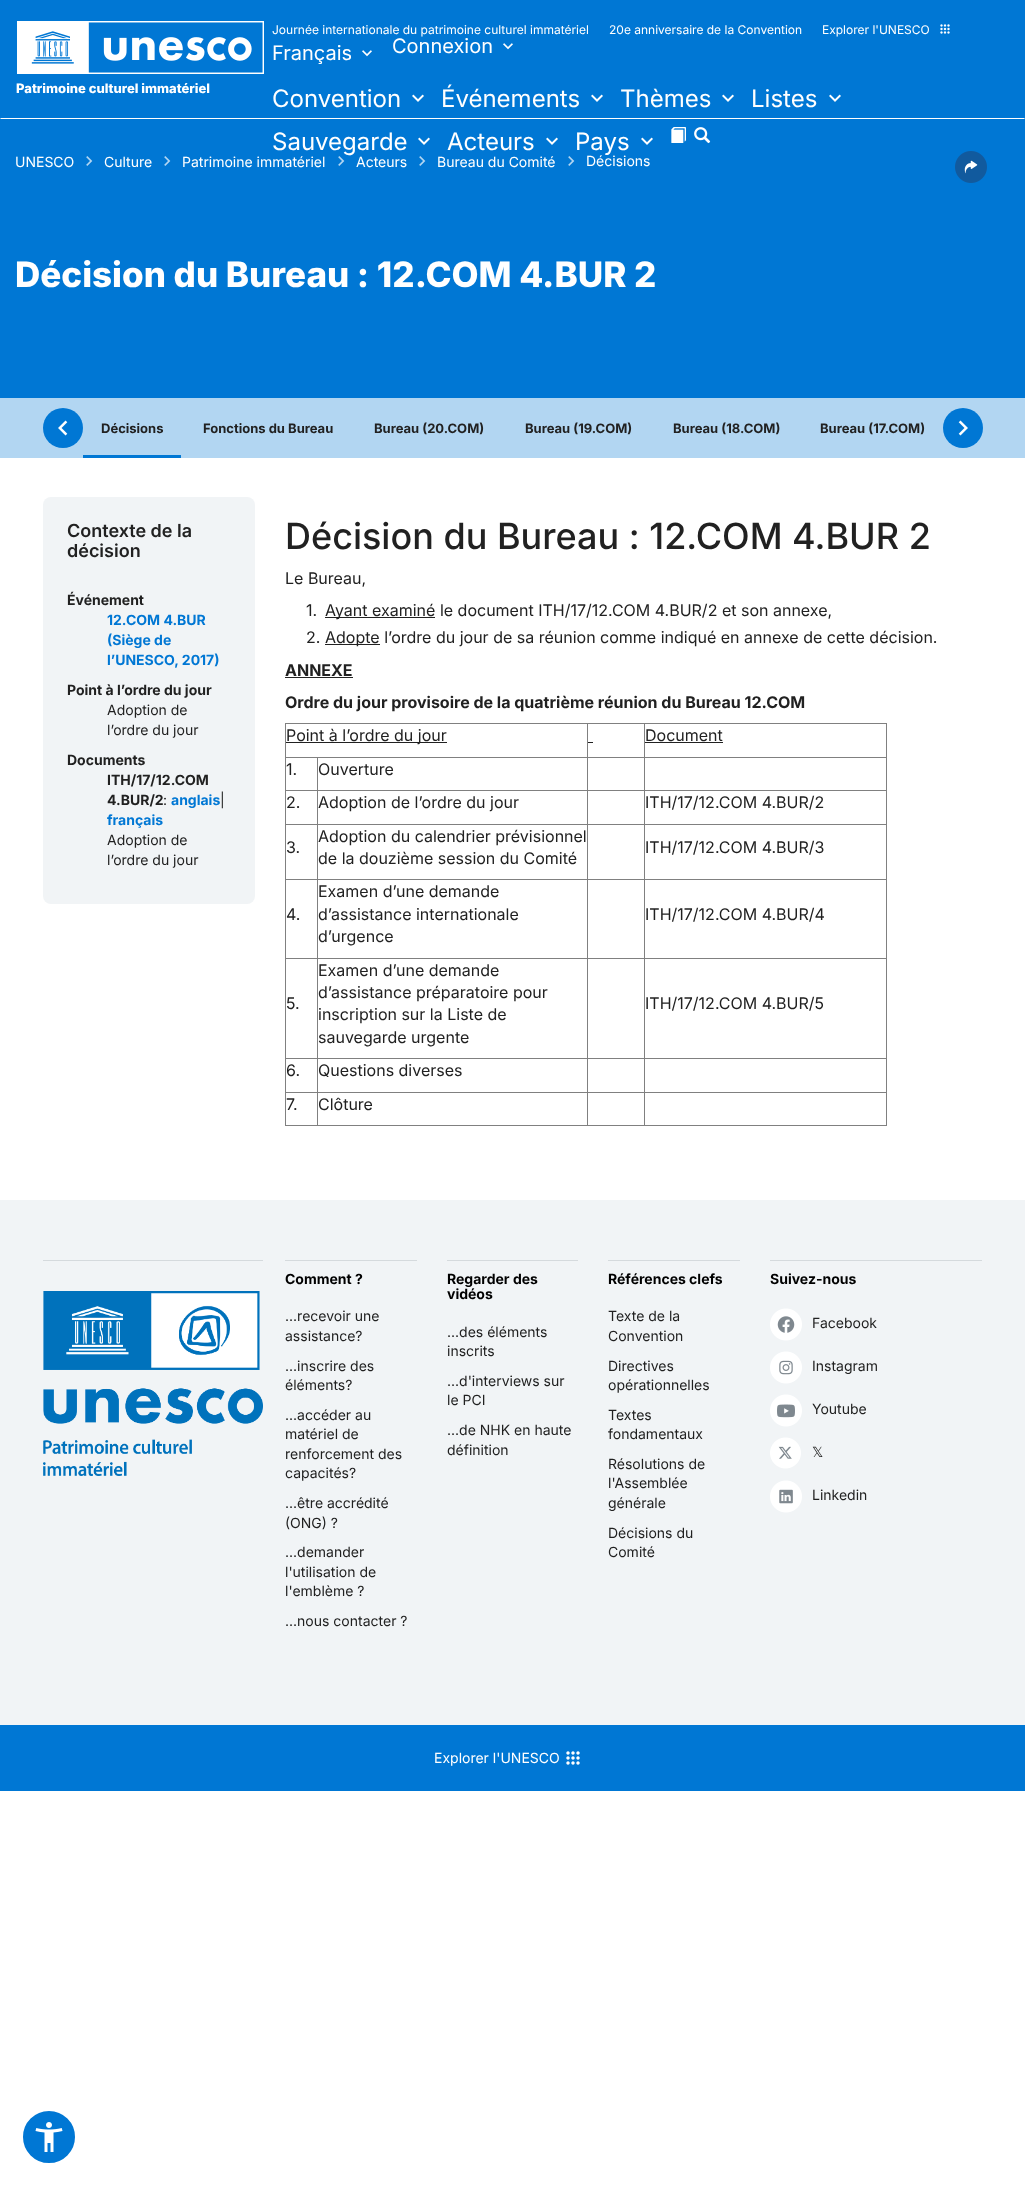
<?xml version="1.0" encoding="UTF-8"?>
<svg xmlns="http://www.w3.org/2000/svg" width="1025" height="2186">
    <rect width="100%" height="100%" fill="#FFFFFF"/>
    <rect x="0" y="0" width="1025" height="398" fill="#0077D4"/>
    <path d="M 1025 119 H 0 L 1 118 H 1024 Z" fill="#FFFFFF"/>
    <image x="17" y="21" width="247" height="53" href="img_01.png"/>
    <text x="16" y="93" font-family="Inter" font-size="13" font-weight="800" fill="#FFFFFF">Patrimoine culturel immatériel</text>
    <text x="272" y="34" font-family="Inter" font-size="12" fill="#FFFFFF">Journée internationale du patrimoine culturel immatériel</text>
    <text x="609" y="34" font-family="Inter" font-size="12" fill="#FFFFFF">20e anniversaire de la Convention</text>
    <text x="822" y="34" font-family="Inter" font-size="12" fill="#FFFFFF">Explorer l'UNESCO</text>
    <image x="940" y="24" width="10" height="10" href="img_02.png"/>
    <text x="272" y="60" font-family="Inter" font-size="20" fill="#FFFFFF">Français</text>
    <image x="362" y="50" width="10" height="7" href="img_03.png"/>
    <text x="392" y="53" font-family="Inter" font-size="20" fill="#FFFFFF">Connexion</text>
    <image x="503" y="43" width="10" height="7" href="img_03.png"/>
    <text x="272" y="107" font-family="Inter" font-size="24" fill="#FFFFFF">Convention</text>
    <image x="412" y="94" width="12" height="8" href="img_04.png"/>
    <text x="441" y="107" font-family="Inter" font-size="24" fill="#FFFFFF">Événements</text>
    <image x="591" y="94" width="12" height="8" href="img_04.png"/>
    <text x="620" y="107" font-family="Inter" font-size="24" fill="#FFFFFF">Thèmes</text>
    <image x="722" y="94" width="12" height="8" href="img_04.png"/>
    <text x="751" y="107" font-family="Inter" font-size="24" fill="#FFFFFF">Listes</text>
    <image x="829" y="94" width="12" height="8" href="img_04.png"/>
    <text x="272" y="150" font-family="Inter" font-size="24" fill="#FFFFFF">Sauvegarde</text>
    <image x="418" y="137" width="12" height="8" href="img_04.png"/>
    <text x="447" y="150" font-family="Inter" font-size="24" fill="#FFFFFF">Acteurs</text>
    <image x="546" y="137" width="12" height="8" href="img_04.png"/>
    <text x="575" y="150" font-family="Inter" font-size="24" fill="#FFFFFF">Pays</text>
    <image x="641" y="137" width="12" height="8" href="img_04.png"/>
    <image x="671" y="127" width="15" height="16" href="img_05.png"/>
    <image x="694" y="127" width="17" height="17" href="img_06.png"/>
    <text x="15" y="167" font-family="Inter" font-size="14" fill="#FFFFFF">UNESCO</text>
    <image x="86" y="156" width="7" height="10" href="img_07.png"/>
    <text x="104" y="167" font-family="Inter" font-size="14" fill="#FFFFFF">Culture</text>
    <image x="164" y="156" width="7" height="10" href="img_07.png"/>
    <text x="182" y="167" font-family="Inter" font-size="14" fill="#FFFFFF">Patrimoine immatériel</text>
    <image x="338" y="156" width="7" height="10" href="img_07.png"/>
    <text x="356" y="167" font-family="Inter" font-size="14" fill="#FFFFFF">Acteurs</text>
    <image x="419" y="156" width="7" height="10" href="img_07.png"/>
    <text x="437" y="167" font-family="Inter" font-size="14" fill="#FFFFFF">Bureau du Comité</text>
    <image x="568" y="156" width="7" height="10" href="img_07.png"/>
    <text x="586" y="166" font-family="Inter" font-size="14" fill="#FFFFFF">Décisions</text>
    <image x="955" y="151" width="32" height="32" href="img_08.png"/>
    <text x="15" y="287" font-family="Inter" font-size="35" font-weight="800" fill="#FFFFFF">Décision du Bureau : 12.COM 4.BUR 2</text>
    <rect x="0" y="398" width="1025" height="60" fill="#B2D6F2"/>
    <circle cx="63" cy="428" r="20" fill="#0077D4"/>
    <image x="58" y="420" width="10" height="16" href="img_09.png"/>
    <rect x="83" y="455" width="98" height="3" fill="#0077D4"/>
    <text x="101" y="433" font-family="Inter" font-size="13" font-weight="700" fill="#212121">Décisions</text>
    <text x="203" y="433" font-family="Inter" font-size="13" font-weight="700" fill="#212121">Fonctions du Bureau</text>
    <text x="374" y="433" font-family="Inter" font-size="13" font-weight="700" fill="#212121">Bureau (20.COM)</text>
    <text x="525" y="433" font-family="Inter" font-size="13" font-weight="700" fill="#212121">Bureau (19.COM)</text>
    <text x="673" y="433" font-family="Inter" font-size="13" font-weight="700" fill="#212121">Bureau (18.COM)</text>
    <text x="820" y="433" font-family="Inter" font-size="13" font-weight="700" fill="#212121">Bureau (17.COM)</text>
    <circle cx="963" cy="428" r="20" fill="#0077D4"/>
    <image x="958" y="420" width="10" height="16" href="img_10.png"/>
    <rect x="43" y="497" width="212" height="407" rx="8" fill="#F1F4F6"/>
    <text font-family="Inter" font-size="18" font-weight="600" fill="#212121">
        <tspan x="67" y="537">Contexte de la</tspan>
        <tspan x="67" y="557">décision</tspan>
    </text>
    <text x="67" y="605" font-family="Inter" font-size="14" font-weight="700" fill="#212121">Événement</text>
    <text font-family="Inter" font-size="14" font-weight="700" fill="#0077D4">
        <tspan x="107" y="625">12.COM 4.BUR</tspan>
        <tspan x="107" y="645">(Siège de</tspan>
        <tspan x="107" y="665">l’UNESCO, 2017)</tspan>
    </text>
    <text x="67" y="695" font-family="Inter" font-size="14" font-weight="700" fill="#212121">Point à l’ordre du jour</text>
    <text font-family="Inter" font-size="14" fill="#212121">
        <tspan x="107" y="715">Adoption de</tspan>
        <tspan x="107" y="735">l’ordre du jour</tspan>
    </text>
    <text x="67" y="765" font-family="Inter" font-size="14" font-weight="700" fill="#212121">Documents</text>
    <text font-family="Inter" font-size="14" font-weight="700" fill="#212121">
        <tspan x="107" y="785">ITH/17/12.COM</tspan>
        <tspan x="107" y="805">4.BUR/2</tspan>
    </text>
    <text x="163" y="805" font-family="Inter" font-size="14" fill="#212121">:</text>
    <text x="171" y="805" font-family="Inter" font-size="14" font-weight="700" fill="#0077D4">anglais</text>
    <text x="220" y="805" font-family="Inter" font-size="14" fill="#212121">|</text>
    <text x="107" y="825" font-family="Inter" font-size="14" font-weight="700" fill="#0077D4">français</text>
    <text font-family="Inter" font-size="14" fill="#212121">
        <tspan x="107" y="845">Adoption de</tspan>
        <tspan x="107" y="865">l’ordre du jour</tspan>
    </text>
    <text x="285" y="549" font-family="Inter" font-size="36" font-weight="500" fill="#212121">Décision du Bureau : 12.COM 4.BUR 2</text>
    <text x="285" y="584" font-family="Inter" font-size="16" fill="#212121">Le Bureau,</text>
    <text x="306" y="616" font-family="Inter" font-size="16" fill="#212121">1.</text>
    <rect x="325" y="617" width="110" height="1" fill="#212121"/>
    <text x="325" y="616" font-family="Inter" font-size="16" fill="#212121">Ayant examiné le document ITH/17/12.COM 4.BUR/2 et son annexe,</text>
    <text x="306" y="643" font-family="Inter" font-size="16" fill="#212121">2.</text>
    <rect x="325" y="644" width="55" height="1" fill="#212121"/>
    <text x="325" y="643" font-family="Inter" font-size="16" fill="#212121">Adopte l’ordre du jour de sa réunion comme indiqué en annexe de cette décision.</text>
    <text x="285" y="676" font-family="Inter" font-size="16" font-weight="700" fill="#212121">ANNEXE</text>
    <rect x="285" y="677" width="68" height="1" fill="#212121"/>
    <text x="285" y="708" font-family="Inter" font-size="16" font-weight="700" fill="#212121">Ordre du jour provisoire de la quatrième réunion du Bureau 12.COM</text>
    <rect x="285" y="723" width="602" height="1" fill="#808080"/>
    <rect x="886" y="723" width="1" height="403" fill="#808080"/>
    <rect x="285" y="1125" width="602" height="1" fill="#808080"/>
    <rect x="285" y="723" width="1" height="403" fill="#808080"/>
    <rect x="286" y="742" width="161" height="1" fill="#212121"/>
    <text x="286" y="741" font-family="Inter" font-size="16" fill="#212121">Point à l’ordre du jour</text>
    <rect x="644" y="757" width="243" height="1" fill="#808080"/>
    <rect x="644" y="790" width="243" height="1" fill="#808080"/>
    <rect x="644" y="824" width="243" height="1" fill="#808080"/>
    <rect x="644" y="879" width="243" height="1" fill="#808080"/>
    <rect x="644" y="958" width="243" height="1" fill="#808080"/>
    <rect x="644" y="1058" width="243" height="1" fill="#808080"/>
    <rect x="644" y="1092" width="243" height="1" fill="#808080"/>
    <rect x="644" y="1092" width="1" height="34" fill="#808080"/>
    <rect x="587" y="1092" width="58" height="1" fill="#808080"/>
    <rect x="644" y="1058" width="1" height="35" fill="#808080"/>
    <rect x="587" y="1058" width="58" height="1" fill="#808080"/>
    <rect x="644" y="958" width="1" height="101" fill="#808080"/>
    <rect x="587" y="958" width="58" height="1" fill="#808080"/>
    <rect x="644" y="879" width="1" height="80" fill="#808080"/>
    <rect x="587" y="879" width="58" height="1" fill="#808080"/>
    <rect x="644" y="824" width="1" height="56" fill="#808080"/>
    <rect x="587" y="824" width="58" height="1" fill="#808080"/>
    <rect x="644" y="790" width="1" height="35" fill="#808080"/>
    <rect x="587" y="790" width="58" height="1" fill="#808080"/>
    <rect x="644" y="757" width="1" height="34" fill="#808080"/>
    <rect x="587" y="757" width="58" height="1" fill="#808080"/>
    <rect x="587" y="1092" width="1" height="34" fill="#808080"/>
    <rect x="317" y="1092" width="271" height="1" fill="#808080"/>
    <rect x="587" y="1058" width="1" height="35" fill="#808080"/>
    <rect x="317" y="1058" width="271" height="1" fill="#808080"/>
    <rect x="587" y="958" width="1" height="101" fill="#808080"/>
    <rect x="317" y="958" width="271" height="1" fill="#808080"/>
    <rect x="587" y="879" width="1" height="80" fill="#808080"/>
    <rect x="317" y="879" width="271" height="1" fill="#808080"/>
    <rect x="587" y="824" width="1" height="56" fill="#808080"/>
    <rect x="317" y="824" width="271" height="1" fill="#808080"/>
    <rect x="587" y="790" width="1" height="35" fill="#808080"/>
    <rect x="317" y="790" width="271" height="1" fill="#808080"/>
    <rect x="587" y="757" width="1" height="34" fill="#808080"/>
    <rect x="317" y="757" width="271" height="1" fill="#808080"/>
    <rect x="587" y="723" width="1" height="35" fill="#808080"/>
    <rect x="588" y="742" width="5" height="1" fill="#212121"/>
    <rect x="644" y="723" width="1" height="35" fill="#808080"/>
    <text x="645" y="741" font-family="Inter" font-size="16" fill="#212121">Document</text>
    <rect x="645" y="742" width="78" height="1" fill="#212121"/>
    <rect x="317" y="1092" width="1" height="34" fill="#808080"/>
    <rect x="285" y="1092" width="33" height="1" fill="#808080"/>
    <rect x="317" y="1058" width="1" height="35" fill="#808080"/>
    <rect x="285" y="1058" width="33" height="1" fill="#808080"/>
    <rect x="317" y="958" width="1" height="101" fill="#808080"/>
    <rect x="285" y="958" width="33" height="1" fill="#808080"/>
    <rect x="317" y="879" width="1" height="80" fill="#808080"/>
    <rect x="285" y="879" width="33" height="1" fill="#808080"/>
    <rect x="317" y="824" width="1" height="56" fill="#808080"/>
    <rect x="285" y="824" width="33" height="1" fill="#808080"/>
    <rect x="317" y="790" width="1" height="35" fill="#808080"/>
    <rect x="285" y="790" width="33" height="1" fill="#808080"/>
    <rect x="317" y="757" width="1" height="34" fill="#808080"/>
    <rect x="285" y="757" width="33" height="1" fill="#808080"/>
    <text x="286" y="775" font-family="Inter" font-size="16" fill="#212121">1.</text>
    <text x="318" y="775" font-family="Inter" font-size="16" fill="#212121">Ouverture</text>
    <text x="286" y="808" font-family="Inter" font-size="16" fill="#212121">2.</text>
    <text x="318" y="808" font-family="Inter" font-size="16" fill="#212121">Adoption de l’ordre du jour</text>
    <text x="645" y="808" font-family="Inter" font-size="16" fill="#212121">ITH/17/12.COM 4.BUR/2</text>
    <text x="286" y="853" font-family="Inter" font-size="16" fill="#212121">3.</text>
    <text font-family="Inter" font-size="16" fill="#212121">
        <tspan x="318" y="842">Adoption du calendrier prévisionnel</tspan>
        <tspan x="318" y="864">de la douzième session du Comité</tspan>
    </text>
    <text x="645" y="853" font-family="Inter" font-size="16" fill="#212121">ITH/17/12.COM 4.BUR/3</text>
    <text x="286" y="920" font-family="Inter" font-size="16" fill="#212121">4.</text>
    <text font-family="Inter" font-size="16" fill="#212121">
        <tspan x="318" y="897">Examen d’une demande</tspan>
        <tspan x="318" y="920">d’assistance internationale</tspan>
        <tspan x="318" y="942">d’urgence</tspan>
    </text>
    <text x="645" y="920" font-family="Inter" font-size="16" fill="#212121">ITH/17/12.COM 4.BUR/4</text>
    <text x="286" y="1009" font-family="Inter" font-size="16" fill="#212121">5.</text>
    <text font-family="Inter" font-size="16" fill="#212121">
        <tspan x="318" y="976">Examen d’une demande</tspan>
        <tspan x="318" y="998">d’assistance préparatoire pour</tspan>
        <tspan x="318" y="1020">inscription sur la Liste de</tspan>
        <tspan x="318" y="1043">sauvegarde urgente</tspan>
    </text>
    <text x="645" y="1009" font-family="Inter" font-size="16" fill="#212121">ITH/17/12.COM 4.BUR/5</text>
    <text x="286" y="1076" font-family="Inter" font-size="16" fill="#212121">6.</text>
    <text x="318" y="1076" font-family="Inter" font-size="16" fill="#212121">Questions diverses</text>
    <text x="286" y="1110" font-family="Inter" font-size="16" fill="#212121">7.</text>
    <text x="318" y="1110" font-family="Inter" font-size="16" fill="#212121">Clôture</text>
    <rect x="0" y="1200" width="1025" height="525" fill="#F1F4F6"/>
    <rect x="43" y="1260" width="220" height="1" fill="#D5DADD"/>
    <image x="43" y="1291" width="220" height="185" href="img_11.png"/>
    <rect x="285" y="1260" width="132" height="1" fill="#D5DADD"/>
    <text x="285" y="1284" font-family="Inter" font-size="14" font-weight="700" fill="#000000">Comment ?</text>
    <text font-family="Inter" font-size="14" fill="#212121">
        <tspan x="285" y="1321">...recevoir une</tspan>
        <tspan x="285" y="1341">assistance?</tspan>
    </text>
    <text font-family="Inter" font-size="14" fill="#212121">
        <tspan x="285" y="1371">...inscrire des</tspan>
        <tspan x="285" y="1390">éléments?</tspan>
    </text>
    <text font-family="Inter" font-size="14" fill="#212121">
        <tspan x="285" y="1420">...accéder au</tspan>
        <tspan x="285" y="1439">matériel de</tspan>
        <tspan x="285" y="1459">renforcement des</tspan>
        <tspan x="285" y="1478">capacités?</tspan>
    </text>
    <text font-family="Inter" font-size="14" fill="#212121">
        <tspan x="285" y="1508">...être accrédité</tspan>
        <tspan x="285" y="1528">(ONG) ?</tspan>
    </text>
    <text font-family="Inter" font-size="14" fill="#212121">
        <tspan x="285" y="1557">...demander</tspan>
        <tspan x="285" y="1577">l'utilisation de</tspan>
        <tspan x="285" y="1596">l'emblème ?</tspan>
    </text>
    <text x="285" y="1626" font-family="Inter" font-size="14" fill="#212121">...nous contacter ?</text>
    <rect x="447" y="1260" width="131" height="1" fill="#D5DADD"/>
    <text font-family="Inter" font-size="14" font-weight="700" fill="#000000">
        <tspan x="447" y="1284">Regarder des</tspan>
        <tspan x="447" y="1299">vidéos</tspan>
    </text>
    <text font-family="Inter" font-size="14" fill="#212121">
        <tspan x="447" y="1337">...des éléments</tspan>
        <tspan x="447" y="1356">inscrits</tspan>
    </text>
    <text font-family="Inter" font-size="14" fill="#212121">
        <tspan x="447" y="1386">...d'interviews sur</tspan>
        <tspan x="447" y="1405">le PCI</tspan>
    </text>
    <text font-family="Inter" font-size="14" fill="#212121">
        <tspan x="447" y="1435">...de NHK en haute</tspan>
        <tspan x="447" y="1455">définition</tspan>
    </text>
    <rect x="608" y="1260" width="132" height="1" fill="#D5DADD"/>
    <text x="608" y="1284" font-family="Inter" font-size="14" font-weight="700" fill="#000000">Références clefs</text>
    <text font-family="Inter" font-size="14" fill="#212121">
        <tspan x="608" y="1321">Texte de la</tspan>
        <tspan x="608" y="1341">Convention</tspan>
    </text>
    <text font-family="Inter" font-size="14" fill="#212121">
        <tspan x="608" y="1371">Directives</tspan>
        <tspan x="608" y="1390">opérationnelles</tspan>
    </text>
    <text font-family="Inter" font-size="14" fill="#212121">
        <tspan x="608" y="1420">Textes</tspan>
        <tspan x="608" y="1439">fondamentaux</tspan>
    </text>
    <text font-family="Inter" font-size="14" fill="#212121">
        <tspan x="608" y="1469">Résolutions de</tspan>
        <tspan x="608" y="1488">l'Assemblée</tspan>
        <tspan x="608" y="1508">générale</tspan>
    </text>
    <text font-family="Inter" font-size="14" fill="#212121">
        <tspan x="608" y="1538">Décisions du</tspan>
        <tspan x="608" y="1557">Comité</tspan>
    </text>
    <rect x="770" y="1260" width="212" height="1" fill="#D5DADD"/>
    <text x="770" y="1284" font-family="Inter" font-size="14" font-weight="700" fill="#000000">Suivez-nous</text>
    <image x="770" y="1308" width="32" height="33" href="img_12.png"/>
    <text x="812" y="1328" font-family="Inter" font-size="14" fill="#212121">Facebook</text>
    <image x="770" y="1351" width="32" height="33" href="img_13.png"/>
    <text x="812" y="1371" font-family="Inter" font-size="14" fill="#212121">Instagram</text>
    <image x="770" y="1394" width="32" height="33" href="img_14.png"/>
    <text x="812" y="1414" font-family="Inter" font-size="14" fill="#212121">Youtube</text>
    <image x="770" y="1437" width="31" height="32" href="img_15.png"/>
    <text x="812" y="1457" font-family="DejaVu Sans" font-size="14" fill="#212121">𝕏</text>
    <image x="770" y="1480" width="32" height="33" href="img_16.png"/>
    <text x="812" y="1500" font-family="Inter" font-size="14" fill="#212121">Linkedin</text>
    <rect x="0" y="1725" width="1025" height="66" fill="#0077D4"/>
    <text x="434" y="1763" font-family="Inter" font-size="14" fill="#FFFFFF">Explorer l'UNESCO</text>
    <image x="566" y="1751" width="14" height="14" href="img_17.png"/>
    <circle cx="49" cy="2137" r="27.5" fill="#0077D4" stroke="#FFFFFF" stroke-width="3"/>
    <image x="35" y="2122" width="28" height="30" href="img_18.png"/>
</svg>
